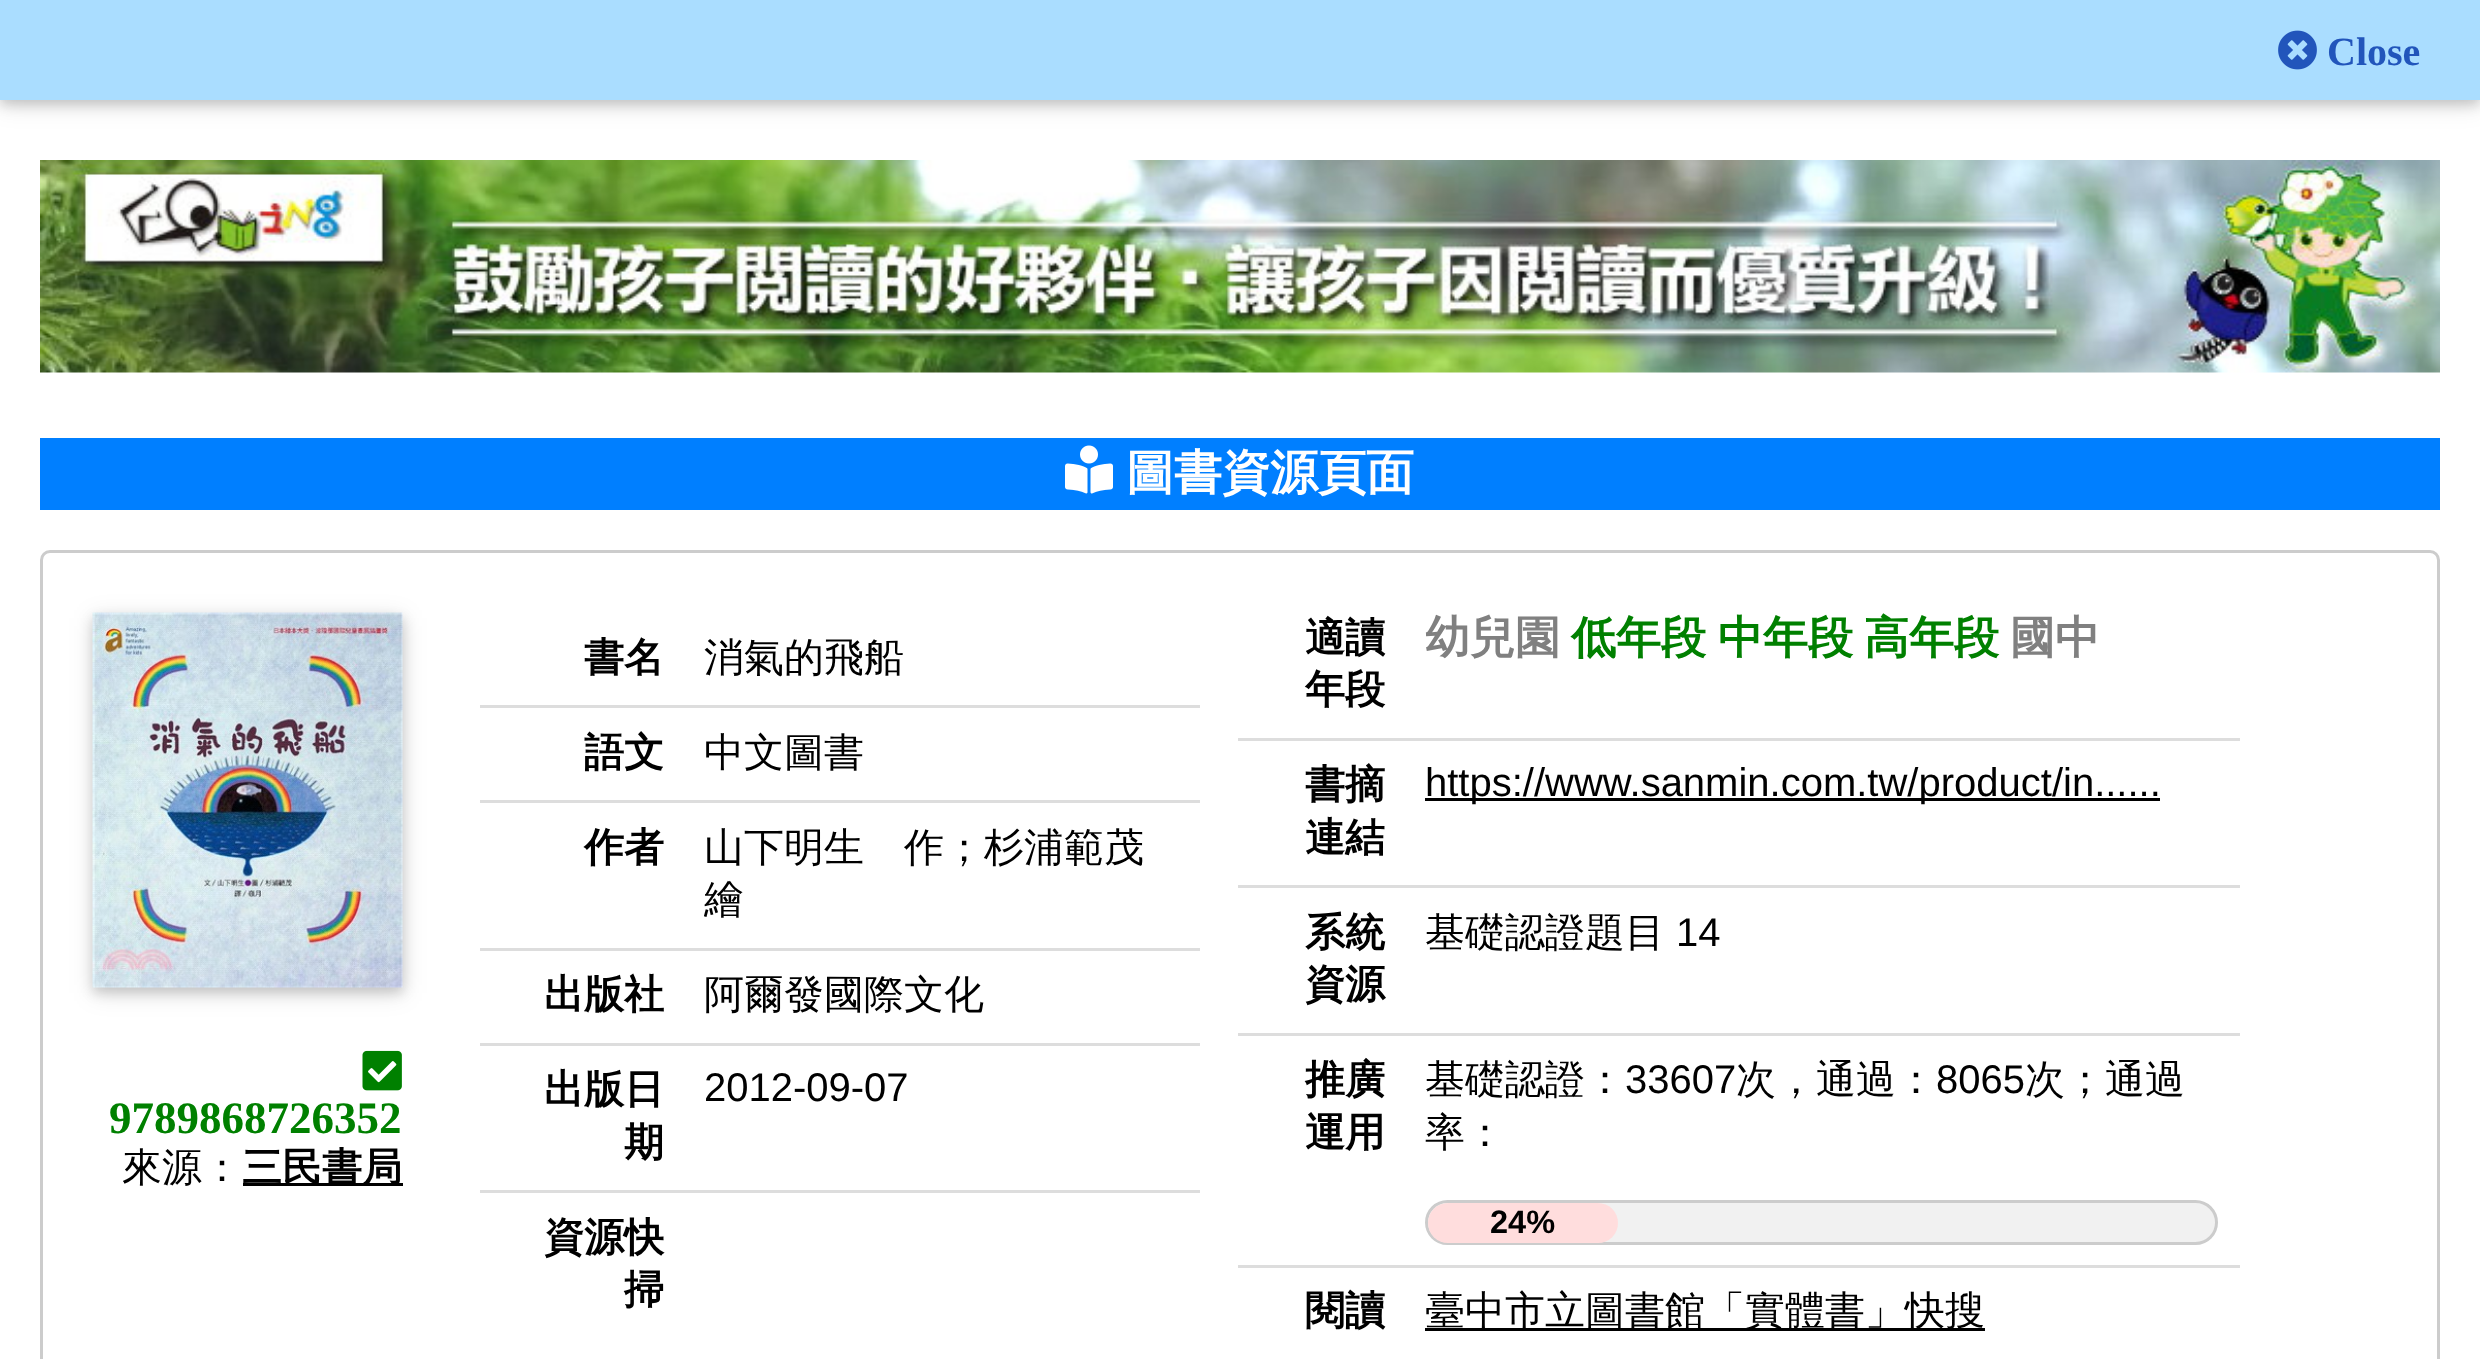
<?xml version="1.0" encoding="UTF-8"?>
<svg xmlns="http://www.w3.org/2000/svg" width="2480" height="1359">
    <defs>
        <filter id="blur1" x="-50%" y="-200%" width="200%" height="500%"><feGaussianBlur stdDeviation="12.5"/></filter>
        <filter id="blur2" x="-50%" y="-200%" width="200%" height="500%"><feGaussianBlur stdDeviation="6"/></filter>
    </defs>
    <rect width="100%" height="100%" fill="#FFFFFF"/>
    <rect x="0" y="5" width="2480" height="100" fill="#000000" fill-opacity="0.12" filter="url(#blur1)"/>
    <rect x="0" y="5" width="2480" height="100" fill="#000000" fill-opacity="0.16" filter="url(#blur2)"/>
    <rect x="0" y="0" width="2480" height="100" fill="#AADDFF"/>
    <image x="2278" y="30" width="39" height="40" href="img_01.png"/>
    <text x="2327" y="65" font-family="Liberation Serif" font-size="40" font-weight="700" fill="#2255BB">Close</text>
    <image x="40" y="160" width="2400" height="213" href="img_02.png"/>
    <rect x="40" y="438" width="2400" height="72" fill="#007FFF"/>
    <image x="1065" y="445" width="48" height="49" href="img_03.png"/>
    <text x="1126" y="489" font-family="WenQuanYi Zen Hei" font-size="48" font-weight="700" fill="#FFFFFF">圖書資源頁面</text>
    <rect x="41.5" y="551.5" width="2397" height="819" rx="8.5" fill="none" stroke="#CCCCCC" stroke-width="3"/>
    <rect x="93" y="618" width="310" height="375" fill="#000000" fill-opacity="0.12" filter="url(#blur1)"/>
    <rect x="93" y="618" width="310" height="375" fill="#000000" fill-opacity="0.16" filter="url(#blur2)"/>
    <image x="92" y="612" width="311" height="376" href="img_04.png"/>
    <image x="362" y="1050" width="40" height="41" href="img_05.png"/>
    <text x="109" y="1133" font-family="Liberation Serif" font-size="45" font-weight="700" fill="#008000">9789868726352</text>
    <text x="122" y="1181" font-family="WenQuanYi Zen Hei" font-size="40" font-weight="500" fill="#000000">來源：</text>
    <rect x="243" y="1183" width="160" height="3" fill="#000000"/>
    <text x="242" y="1181" font-family="WenQuanYi Zen Hei" font-size="40" font-weight="700" fill="#000000">三民書局</text>
    <rect x="480" y="705" width="720" height="3" fill="#DDDDDD"/>
    <text x="584" y="671" font-family="WenQuanYi Zen Hei" font-size="40" font-weight="700" fill="#000000">書名</text>
    <text x="704" y="671" font-family="WenQuanYi Zen Hei" font-size="40" font-weight="500" fill="#000000">消氣的飛船</text>
    <rect x="480" y="800" width="720" height="3" fill="#DDDDDD"/>
    <text x="584" y="766" font-family="WenQuanYi Zen Hei" font-size="40" font-weight="700" fill="#000000">語文</text>
    <text x="704" y="766" font-family="WenQuanYi Zen Hei" font-size="40" font-weight="500" fill="#000000">中文圖書</text>
    <rect x="480" y="948" width="720" height="3" fill="#DDDDDD"/>
    <text x="584" y="861" font-family="WenQuanYi Zen Hei" font-size="40" font-weight="700" fill="#000000">作者</text>
    <text font-family="WenQuanYi Zen Hei" font-size="40" font-weight="500" fill="#000000">
        <tspan x="704" y="861">山下明生　作；杉浦範茂</tspan>
        <tspan x="704" y="913">繪</tspan>
    </text>
    <rect x="480" y="1043" width="720" height="3" fill="#DDDDDD"/>
    <text x="544" y="1008" font-family="WenQuanYi Zen Hei" font-size="40" font-weight="700" fill="#000000">出版社</text>
    <text x="704" y="1008" font-family="WenQuanYi Zen Hei" font-size="40" font-weight="500" fill="#000000">阿爾發國際文化</text>
    <rect x="480" y="1190" width="720" height="3" fill="#DDDDDD"/>
    <text x="544" y="1103" font-family="WenQuanYi Zen Hei" font-size="40" font-weight="700" fill="#000000">出版日</text>
    <text x="624" y="1156" font-family="WenQuanYi Zen Hei" font-size="40" font-weight="700" fill="#000000">期</text>
    <text x="704" y="1101" font-family="Liberation Sans" font-size="40" fill="#000000">2012-09-07</text>
    <text x="544" y="1251" font-family="WenQuanYi Zen Hei" font-size="40" font-weight="700" fill="#000000">資源快</text>
    <text x="624" y="1303" font-family="WenQuanYi Zen Hei" font-size="40" font-weight="700" fill="#000000">掃</text>
    <rect x="1238" y="738" width="1002" height="3" fill="#DDDDDD"/>
    <text font-family="WenQuanYi Zen Hei" font-size="40" font-weight="700" fill="#000000">
        <tspan x="1305" y="651">適讀</tspan>
        <tspan x="1305" y="703">年段</tspan>
    </text>
    <text x="1425" y="653" font-family="WenQuanYi Zen Hei" font-size="45" font-weight="700" fill="#808080">幼兒園</text>
    <text x="1571" y="653" font-family="WenQuanYi Zen Hei" font-size="45" font-weight="700" fill="#008000">低年段</text>
    <text x="1718" y="653" font-family="WenQuanYi Zen Hei" font-size="45" font-weight="700" fill="#008000">中年段</text>
    <text x="1864" y="653" font-family="WenQuanYi Zen Hei" font-size="45" font-weight="700" fill="#008000">高年段</text>
    <text x="2010" y="653" font-family="WenQuanYi Zen Hei" font-size="45" font-weight="700" fill="#808080">國中</text>
    <rect x="1238" y="885" width="1002" height="3" fill="#DDDDDD"/>
    <text font-family="WenQuanYi Zen Hei" font-size="40" font-weight="700" fill="#000000">
        <tspan x="1305" y="798">書摘</tspan>
        <tspan x="1305" y="851">連結</tspan>
    </text>
    <rect x="1425" y="798" width="735" height="3" fill="#000000"/>
    <text x="1425" y="796" font-family="Liberation Sans" font-size="40" fill="#000000">https://www.sanmin.com.tw/product/in......</text>
    <rect x="1238" y="1033" width="1002" height="3" fill="#DDDDDD"/>
    <text font-family="WenQuanYi Zen Hei" font-size="40" font-weight="700" fill="#000000">
        <tspan x="1305" y="946">系統</tspan>
        <tspan x="1305" y="998">資源</tspan>
    </text>
    <text x="1425" y="946" font-family="WenQuanYi Zen Hei" font-size="40" font-weight="500" fill="#000000">基礎認證題目</text>
    <text x="1676" y="946" font-family="Liberation Sans" font-size="40" fill="#000000">14</text>
    <rect x="1238" y="1265" width="1002" height="3" fill="#DDDDDD"/>
    <text font-family="WenQuanYi Zen Hei" font-size="40" font-weight="700" fill="#000000">
        <tspan x="1305" y="1093">推廣</tspan>
        <tspan x="1305" y="1146">運用</tspan>
    </text>
    <text x="1425" y="1093" font-family="WenQuanYi Zen Hei" font-size="40" font-weight="500" fill="#000000">基礎認證：</text>
    <text x="1625" y="1093" font-family="Liberation Sans" font-size="40" fill="#000000">33607</text>
    <text x="1736" y="1093" font-family="WenQuanYi Zen Hei" font-size="40" font-weight="500" fill="#000000">次，通過：</text>
    <text x="1936" y="1093" font-family="Liberation Sans" font-size="40" fill="#000000">8065</text>
    <text x="2025" y="1093" font-family="WenQuanYi Zen Hei" font-size="40" font-weight="500" fill="#000000">次；通過</text>
    <text x="1425" y="1146" font-family="WenQuanYi Zen Hei" font-size="40" font-weight="500" fill="#000000">率：</text>
    <rect x="1426.5" y="1201.5" width="790" height="42" rx="21" fill="#F1F1F1" stroke="#CCCCCC" stroke-width="3"/>
    <rect x="1428" y="1203" width="190" height="40" rx="20" fill="#FFDDDD"/>
    <text x="1490" y="1233" font-family="Liberation Sans" font-size="32.5" font-weight="700" fill="#000000">24%</text>
    <text x="1305" y="1324" font-family="WenQuanYi Zen Hei" font-size="40" font-weight="700" fill="#000000">閱讀</text>
    <rect x="1425" y="1328" width="560" height="3" fill="#000000"/>
    <text x="1425" y="1324" font-family="WenQuanYi Zen Hei" font-size="40" font-weight="500" fill="#000000">臺中市立圖書館「實體書」快搜</text>
</svg>
